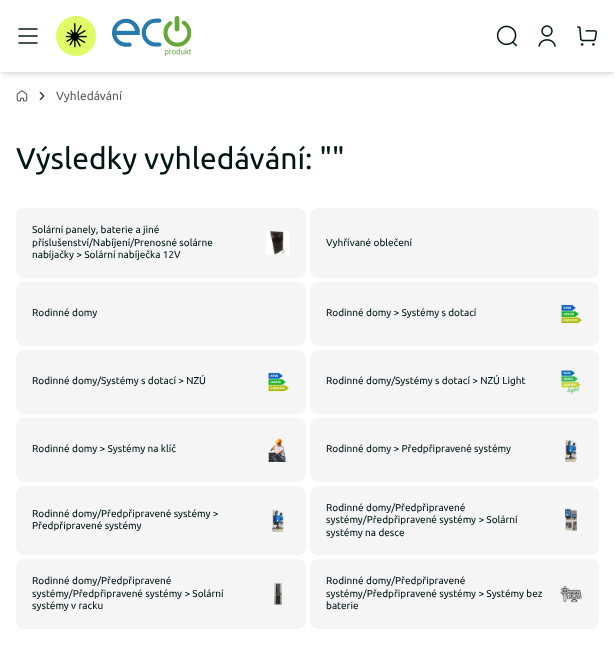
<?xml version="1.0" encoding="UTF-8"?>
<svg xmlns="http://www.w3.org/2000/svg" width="615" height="660">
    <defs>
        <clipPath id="clip1"><rect x="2" y="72" width="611" height="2"/></clipPath>
        <filter id="blur1" x="-50%" y="-200%" width="200%" height="500%"><feGaussianBlur stdDeviation="2"/></filter>
        <clipPath id="clip2"><rect x="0" y="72" width="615" height="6"/></clipPath>
        <filter id="blur2" x="-50%" y="-200%" width="200%" height="500%"><feGaussianBlur stdDeviation="3"/></filter>
    </defs>
    <rect width="100%" height="100%" fill="#FFFFFF"/>
    <g clip-path="url(#clip1)">
        <rect x="2" y="4" width="611" height="68" fill="#000000" fill-opacity="0.1" filter="url(#blur1)"/>
    </g>
    <g clip-path="url(#clip2)">
        <rect x="1" y="5" width="613" height="70" fill="#000000" fill-opacity="0.1" filter="url(#blur2)"/>
    </g>
    <image x="18" y="28" width="20" height="16" href="img_01.png"/>
    <image x="56" y="16" width="40" height="40" href="img_02.png"/>
    <image x="112" y="16" width="79" height="40" href="img_03.png"/>
    <image x="496" y="25" width="22" height="22" href="img_04.png"/>
    <image x="538" y="25" width="18" height="22" href="img_05.png"/>
    <image x="577" y="26" width="20" height="20" href="img_06.png"/>
    <image x="16" y="90" width="12" height="12" href="img_07.png"/>
    <image x="39" y="91" width="6" height="9" href="img_08.png"/>
    <text x="56" y="100" font-family="Ubuntu" font-size="12" fill="#5D5D5D">Vyhledávání</text>
    <text x="16" y="169" font-family="Ubuntu" font-size="30" fill="#001514">Výsledky vyhledávání: ""</text>
    <rect x="16" y="208" width="290" height="70" rx="8" fill="#F5F5F5"/>
    <text font-family="Ubuntu" font-size="10" fill="#001514">
        <tspan x="32" y="233">Solární panely, baterie a jiné</tspan>
        <tspan x="32" y="246">příslušenství/Nabíjení/Prenosné solárne</tspan>
        <tspan x="32" y="258">nabíjačky &gt; Solární nabíječka 12V</tspan>
    </text>
    <image x="266" y="231" width="24" height="24" href="img_09.png"/>
    <rect x="310" y="208" width="289" height="70" rx="8" fill="#F5F5F5"/>
    <text x="326" y="246" font-family="Ubuntu" font-size="10" fill="#001514">Vyhřívané oblečení</text>
    <rect x="16" y="282" width="290" height="64" rx="8" fill="#F5F5F5"/>
    <text x="32" y="316" font-family="Ubuntu" font-size="10" fill="#001514">Rodinné domy</text>
    <rect x="310" y="282" width="289" height="64" rx="8" fill="#F5F5F5"/>
    <text x="326" y="316" font-family="Ubuntu" font-size="10" fill="#001514">Rodinné domy &gt; Systémy s dotací</text>
    <image x="561" y="304" width="22" height="20" href="img_10.png"/>
    <rect x="16" y="350" width="290" height="64" rx="8" fill="#F5F5F5"/>
    <text x="32" y="384" font-family="Ubuntu" font-size="10" fill="#001514">Rodinné domy/Systémy s dotací &gt; NZÚ</text>
    <image x="268" y="372" width="22" height="20" href="img_11.png"/>
    <rect x="310" y="350" width="289" height="64" rx="8" fill="#F5F5F5"/>
    <text x="326" y="384" font-family="Ubuntu" font-size="10" fill="#001514">Rodinné domy/Systémy s dotací &gt; NZÚ Light</text>
    <image x="561" y="370" width="20" height="24" href="img_12.png"/>
    <rect x="16" y="418" width="290" height="64" rx="8" fill="#F5F5F5"/>
    <text x="32" y="452" font-family="Ubuntu" font-size="10" fill="#001514">Rodinné domy &gt; Systémy na klíč</text>
    <image x="268" y="438" width="19" height="24" href="img_13.png"/>
    <rect x="310" y="418" width="289" height="64" rx="8" fill="#F5F5F5"/>
    <text x="326" y="452" font-family="Ubuntu" font-size="10" fill="#001514">Rodinné domy &gt; Předpřipravené systémy</text>
    <image x="565" y="439" width="12" height="23" href="img_14.png"/>
    <rect x="16" y="486" width="290" height="69" rx="8" fill="#F5F5F5"/>
    <text font-family="Ubuntu" font-size="10" fill="#001514">
        <tspan x="32" y="517">Rodinné domy/Předpřipravené systémy &gt;</tspan>
        <tspan x="32" y="529">Předpřipravené systémy</tspan>
    </text>
    <image x="272" y="509" width="12" height="23" href="img_14.png"/>
    <rect x="310" y="486" width="289" height="69" rx="8" fill="#F5F5F5"/>
    <text font-family="Ubuntu" font-size="10" fill="#001514">
        <tspan x="326" y="511">Rodinné domy/Předpřipravené</tspan>
        <tspan x="326" y="523">systémy/Předpřipravené systémy &gt; Solární</tspan>
        <tspan x="326" y="536">systémy na desce</tspan>
    </text>
    <image x="565" y="508" width="12" height="24" href="img_15.png"/>
    <rect x="16" y="559" width="290" height="70" rx="8" fill="#F5F5F5"/>
    <text font-family="Ubuntu" font-size="10" fill="#001514">
        <tspan x="32" y="584">Rodinné domy/Předpřipravené</tspan>
        <tspan x="32" y="597">systémy/Předpřipravené systémy &gt; Solární</tspan>
        <tspan x="32" y="609">systémy v racku</tspan>
    </text>
    <image x="274" y="582" width="8" height="24" href="img_16.png"/>
    <rect x="310" y="559" width="289" height="70" rx="8" fill="#F5F5F5"/>
    <text font-family="Ubuntu" font-size="10" fill="#001514">
        <tspan x="326" y="584">Rodinné domy/Předpřipravené</tspan>
        <tspan x="326" y="597">systémy/Předpřipravené systémy &gt; Systémy bez</tspan>
        <tspan x="326" y="609">baterie</tspan>
    </text>
    <image x="560" y="585" width="22" height="18" href="img_17.png"/>
</svg>
